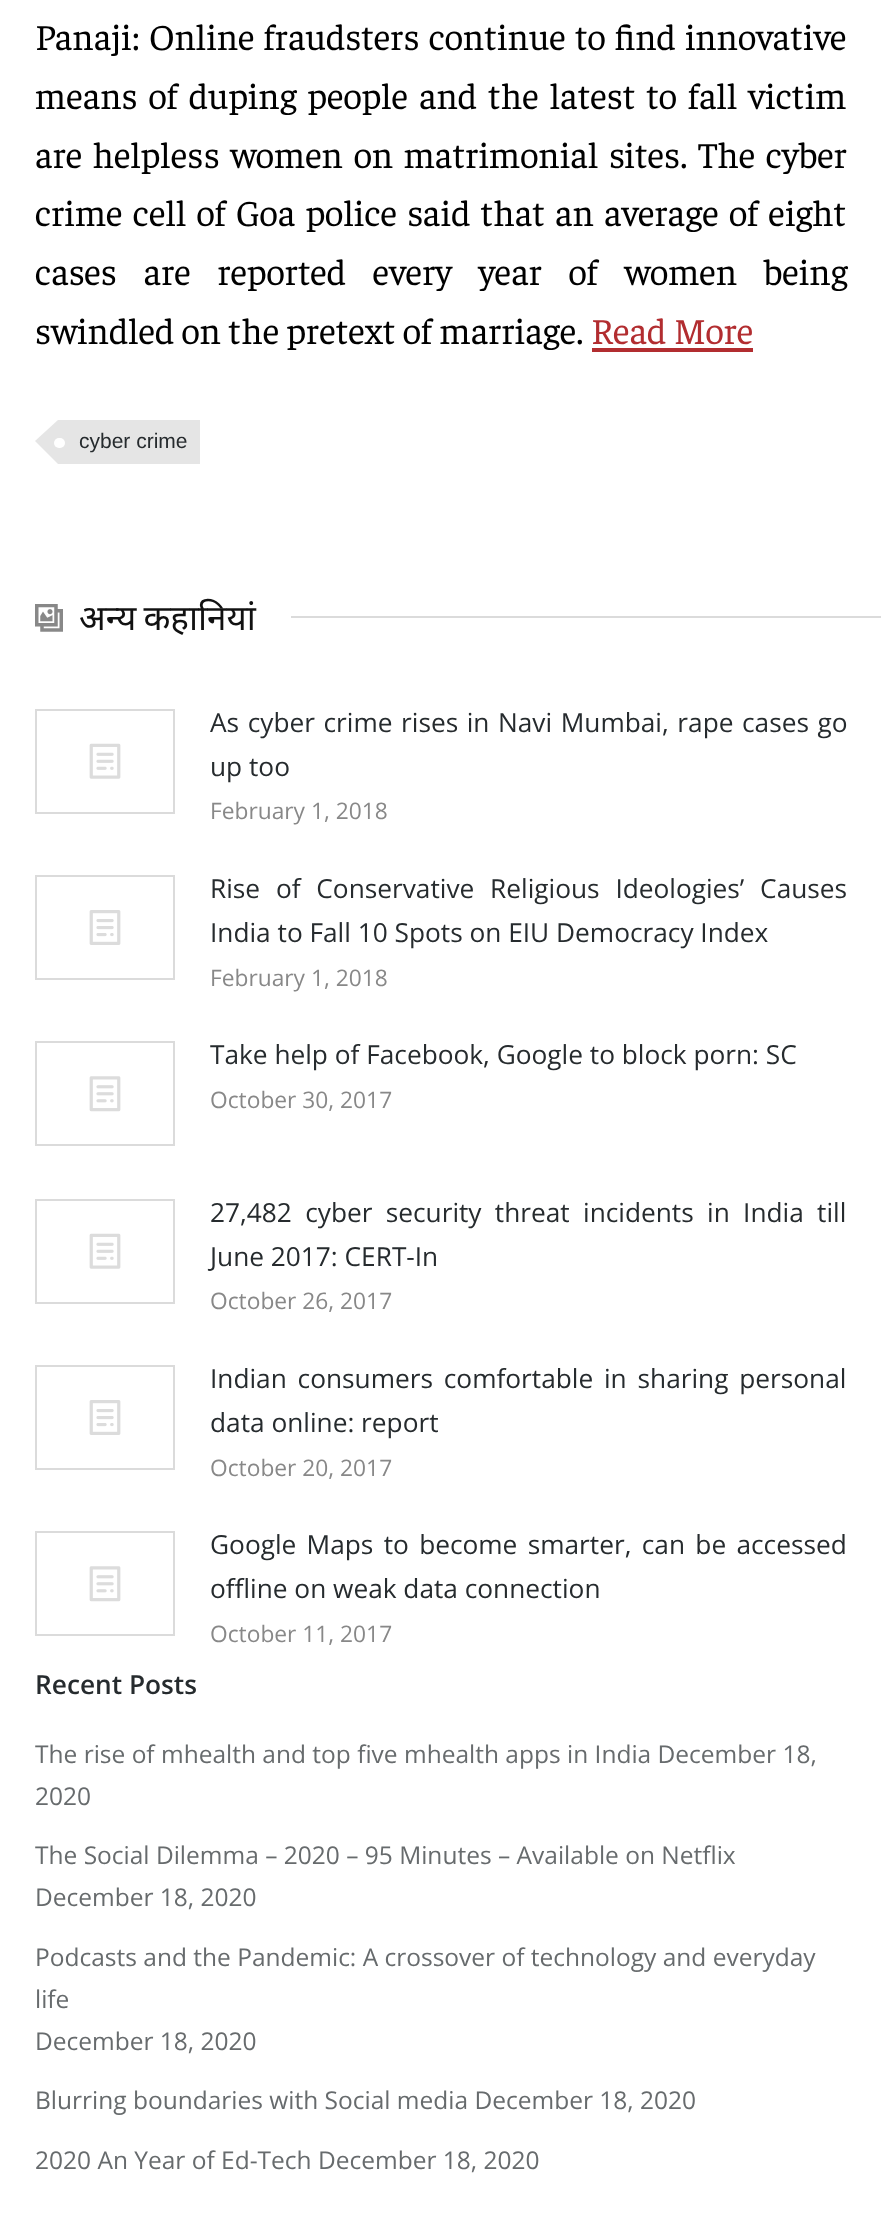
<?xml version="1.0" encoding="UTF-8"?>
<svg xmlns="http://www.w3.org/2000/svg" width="881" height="2231">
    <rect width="100%" height="100%" fill="#FFFFFF"/>
    <text font-family="Faustina" font-size="36.75" fill="#000000">
        <tspan x="35" y="50" word-spacing="1.75">Panaji: Online fraudsters continue to find innovative</tspan>
        <tspan x="35" y="109" word-spacing="3.5">means of duping people and the latest to fall victim</tspan>
        <tspan x="35" y="168" word-spacing="3.25">are helpless women on matrimonial sites. The cyber</tspan>
        <tspan x="35" y="226" word-spacing="2.75">crime cell of Goa police said that an average of eight</tspan>
        <tspan x="35" y="285" word-spacing="19.25">cases are reported every year of women being</tspan>
        <tspan x="35" y="344">swindled on the pretext of marriage.</tspan>
    </text>
    <text x="591" y="344" font-family="Faustina" font-size="36.75" fill="#B22D30">Read More</text>
    <rect x="592" y="348" width="161" height="4" fill="#B22D30"/>
    <rect x="58" y="420" width="142" height="44" fill="#E5E5E5"/>
    <path d="M 58 420 V 464 L 35 441 Z" fill="#E5E5E5"/>
    <rect x="54" y="438" width="11" height="10" rx="5" fill="#FFFFFF"/>
    <text x="79" y="448" font-family="Liberation Sans" font-size="21" fill="#262B2E">cyber crime</text>
    <image x="35" y="604" width="28" height="28" href="img_01.png"/>
    <text x="79" y="630" word-spacing="-2" font-family="Noto Sans" font-size="35" fill="#111111">अन्य कहानियां</text>
    <rect x="291" y="616" width="590" height="2" fill="#DBDBDB"/>
    <rect x="36" y="710" width="138" height="103" fill="none" stroke="#DBDBDB" stroke-width="2"/>
    <image x="89" y="743" width="32" height="36" href="img_02.png"/>
    <text font-family="Open Sans" font-size="26.25" fill="#262B2E">
        <tspan x="210" y="732" word-spacing="1.75">As cyber crime rises in Navi Mumbai, rape cases go</tspan>
        <tspan x="210" y="776">up too</tspan>
    </text>
    <text x="210" y="819" font-family="Open Sans" font-size="22.75" fill="#888888">February 1, 2018</text>
    <rect x="36" y="876" width="138" height="103" fill="none" stroke="#DBDBDB" stroke-width="2"/>
    <image x="89" y="910" width="32" height="35" href="img_03.png"/>
    <text font-family="Open Sans" font-size="26.25" fill="#262B2E">
        <tspan x="210" y="898" word-spacing="9">Rise of Conservative Religious Ideologies’ Causes</tspan>
        <tspan x="210" y="942">India to Fall 10 Spots on EIU Democracy Index</tspan>
    </text>
    <text x="210" y="986" font-family="Open Sans" font-size="22.75" fill="#888888">February 1, 2018</text>
    <rect x="36" y="1042" width="138" height="103" fill="none" stroke="#DBDBDB" stroke-width="2"/>
    <image x="89" y="1076" width="32" height="36" href="img_04.png"/>
    <text x="210" y="1064" font-family="Open Sans" font-size="26.25" fill="#262B2E">Take help of Facebook, Google to block porn: SC</text>
    <text x="210" y="1108" font-family="Open Sans" font-size="22.75" fill="#888888">October 30, 2017</text>
    <rect x="36" y="1200" width="138" height="103" fill="none" stroke="#DBDBDB" stroke-width="2"/>
    <image x="89" y="1233" width="32" height="36" href="img_02.png"/>
    <text font-family="Open Sans" font-size="26.25" fill="#262B2E">
        <tspan x="210" y="1222" word-spacing="6.5">27,482 cyber security threat incidents in India till</tspan>
        <tspan x="210" y="1266">June 2017: CERT-In</tspan>
    </text>
    <text x="210" y="1309" font-family="Open Sans" font-size="22.75" fill="#888888">October 26, 2017</text>
    <rect x="36" y="1366" width="138" height="103" fill="none" stroke="#DBDBDB" stroke-width="2"/>
    <image x="89" y="1400" width="32" height="35" href="img_03.png"/>
    <text font-family="Open Sans" font-size="26.25" fill="#262B2E">
        <tspan x="210" y="1388" word-spacing="4">Indian consumers comfortable in sharing personal</tspan>
        <tspan x="210" y="1432">data online: report</tspan>
    </text>
    <text x="210" y="1476" font-family="Open Sans" font-size="22.75" fill="#888888">October 20, 2017</text>
    <rect x="36" y="1532" width="138" height="103" fill="none" stroke="#DBDBDB" stroke-width="2"/>
    <image x="89" y="1566" width="32" height="36" href="img_04.png"/>
    <text font-family="Open Sans" font-size="26.25" fill="#262B2E">
        <tspan x="210" y="1554" word-spacing="3.5">Google Maps to become smarter, can be accessed</tspan>
        <tspan x="210" y="1598">offline on weak data connection</tspan>
    </text>
    <text x="210" y="1642" font-family="Open Sans" font-size="22.75" fill="#888888">October 11, 2017</text>
    <text x="35" y="1694" font-family="Open Sans" font-size="26.25" font-weight="600" fill="#262B2E">Recent Posts</text>
    <text font-family="Open Sans" font-size="24.5" fill="#676B6D">
        <tspan x="35" y="1763">The rise of mhealth and top five mhealth apps in India December 18,</tspan>
        <tspan x="35" y="1805">2020</tspan>
    </text>
    <text font-family="Open Sans" font-size="24.5" fill="#676B6D">
        <tspan x="35" y="1864">The Social Dilemma – 2020 – 95 Minutes – Available on Netflix</tspan>
        <tspan x="35" y="1906">December 18, 2020</tspan>
    </text>
    <text font-family="Open Sans" font-size="24.5" fill="#676B6D">
        <tspan x="35" y="1966">Podcasts and the Pandemic: A crossover of technology and everyday</tspan>
        <tspan x="35" y="2008">life</tspan>
        <tspan x="35" y="2050">December 18, 2020</tspan>
    </text>
    <text x="35" y="2109" font-family="Open Sans" font-size="24.5" fill="#676B6D">Blurring boundaries with Social media December 18, 2020</text>
    <text x="35" y="2169" font-family="Open Sans" font-size="24.5" fill="#676B6D">2020 An Year of Ed-Tech December 18, 2020</text>
</svg>
